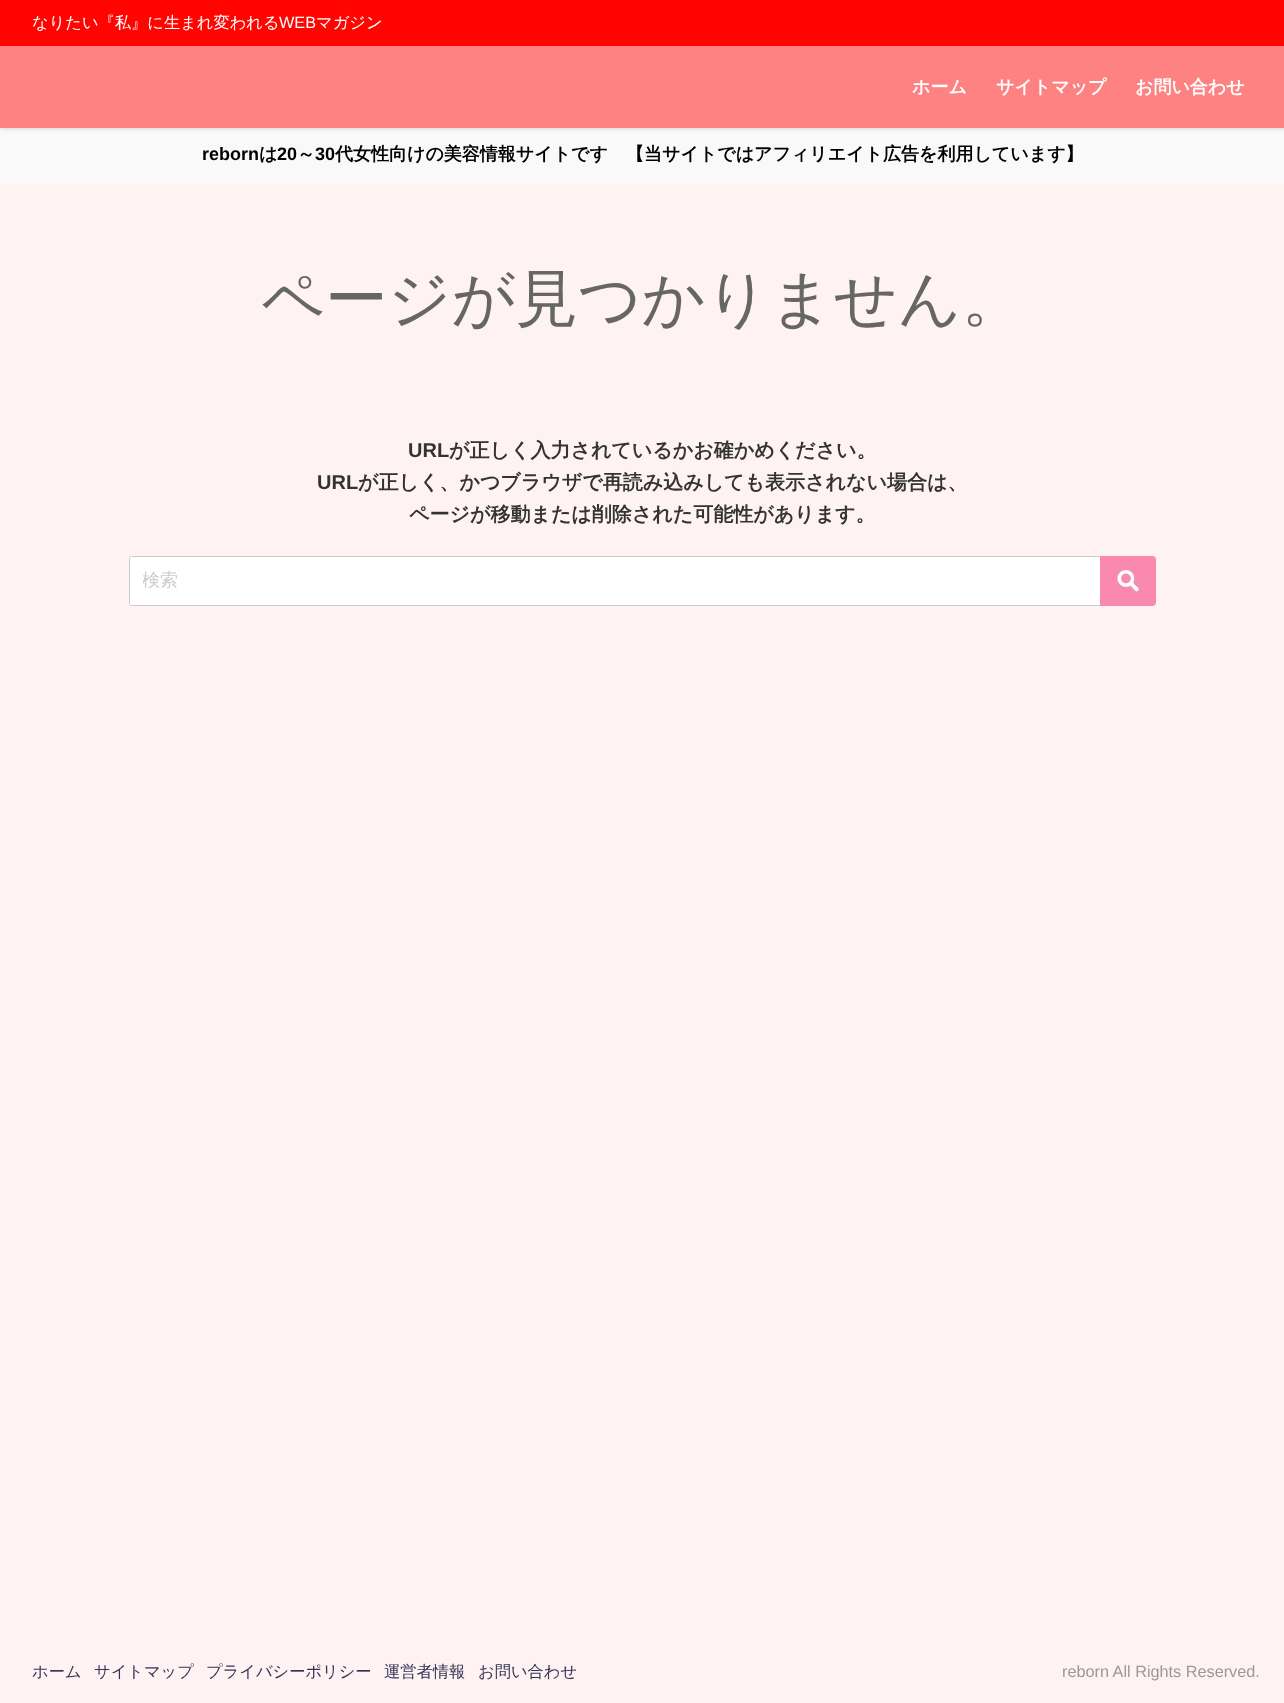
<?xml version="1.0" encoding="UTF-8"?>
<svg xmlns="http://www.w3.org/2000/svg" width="1284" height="1703">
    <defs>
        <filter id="blur1" x="-50%" y="-200%" width="200%" height="500%"><feGaussianBlur stdDeviation="2.5"/></filter>
        <clipPath id="clip1"><rect x="143" y="570" width="950" height="23"/></clipPath>
    </defs>
    <rect width="100%" height="100%" fill="#FFF2F2"/>
    <rect x="0" y="128" width="1284" height="57" fill="#F9F9F9"/>
    <rect x="0" y="0" width="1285" height="128" fill="#000000" fill-opacity="0.2" filter="url(#blur1)"/>
    <rect x="0" y="46" width="1284" height="82" fill="#FF8282"/>
    <rect x="0" y="0" width="1284" height="46" fill="#FF0400"/>
    <text x="32" y="28" font-family="WenQuanYi Zen Hei" font-size="16.25" font-weight="500" fill="#FFFFFF">なりたい『私』に生まれ変われる</text>
    <text x="279" y="28" font-family="Liberation Sans" font-size="16.25" fill="#FFFFFF">WEB</text>
    <text x="316" y="28" font-family="WenQuanYi Zen Hei" font-size="16.25" font-weight="500" fill="#FFFFFF">マガジン</text>
    <text x="912" y="93" font-family="WenQuanYi Zen Hei" font-size="18" font-weight="700" fill="#FFFFFF">ホーム</text>
    <text x="996" y="93" font-family="WenQuanYi Zen Hei" font-size="18" font-weight="700" fill="#FFFFFF">サイトマップ</text>
    <text x="1135" y="93" font-family="WenQuanYi Zen Hei" font-size="18" font-weight="700" fill="#FFFFFF">お問い合わせ</text>
    <text x="202" y="160" font-family="Liberation Sans" font-size="18" font-weight="700" fill="#000000">reborn</text>
    <text x="259" y="160" font-family="WenQuanYi Zen Hei" font-size="18" font-weight="700" fill="#000000">は</text>
    <text x="277" y="160" font-family="Liberation Sans" font-size="18" font-weight="700" fill="#000000">20</text>
    <text x="297" y="160" font-family="WenQuanYi Zen Hei" font-size="18" font-weight="700" fill="#000000">～</text>
    <text x="315" y="160" font-family="Liberation Sans" font-size="18" font-weight="700" fill="#000000">30</text>
    <text x="335" y="160" font-family="WenQuanYi Zen Hei" font-size="18" font-weight="700" fill="#000000">代女性向けの美容情報サイトです　【当サイトではアフィリエイト広告を利用しています】</text>
    <text x="261" y="320" font-family="WenQuanYi Zen Hei" font-size="62.5" font-weight="500" fill="#666666">ページが見つかりません。</text>
    <text x="408" y="457" font-family="Liberation Sans" font-size="20" font-weight="700" fill="#333333">URL</text>
    <text x="449" y="457" font-family="WenQuanYi Zen Hei" font-size="20" font-weight="700" fill="#333333">が正しく入力されているかお確かめください。</text>
    <text x="317" y="489" font-family="Liberation Sans" font-size="20" font-weight="700" fill="#333333">URL</text>
    <text x="358" y="489" font-family="WenQuanYi Zen Hei" font-size="20" font-weight="700" fill="#333333">が正しく、かつブラウザで再読み込みしても表示されない場合は、</text>
    <text x="409" y="521" font-family="WenQuanYi Zen Hei" font-size="20" font-weight="700" fill="#333333">ページが移動または削除された可能性があります。</text>
    <rect x="129.5" y="556.5" width="1026" height="49" rx="2" fill="#FFFFFF" stroke="#CCCCCC"/>
    <g clip-path="url(#clip1)">
        <text x="142" y="586" font-family="WenQuanYi Zen Hei" font-size="18" font-weight="500" fill="#CCCCCC">検索</text>
    </g>
    <path d="M 1100 556 H 1152 C 1154 556 1156 558 1156 560 V 602 C 1156 604 1154 606 1152 606 H 1100 Z" fill="#FA89AF"/>
    <image x="1117" y="570" width="22" height="22" href="img_01.png"/>
    <text x="32" y="1677" font-family="WenQuanYi Zen Hei" font-size="16.25" font-weight="500" fill="#333355">ホーム</text>
    <text x="94" y="1677" font-family="WenQuanYi Zen Hei" font-size="16.25" font-weight="500" fill="#333355">サイトマップ</text>
    <text x="206" y="1677" font-family="WenQuanYi Zen Hei" font-size="16.25" font-weight="500" fill="#333355">プライバシーポリシー</text>
    <text x="384" y="1677" font-family="WenQuanYi Zen Hei" font-size="16.25" font-weight="500" fill="#333355">運営者情報</text>
    <text x="478" y="1677" font-family="WenQuanYi Zen Hei" font-size="16.25" font-weight="500" fill="#333355">お問い合わせ</text>
    <text x="1062" y="1677" font-family="Liberation Sans" font-size="16.25" fill="#999999">reborn All Rights Reserved.</text>
</svg>
